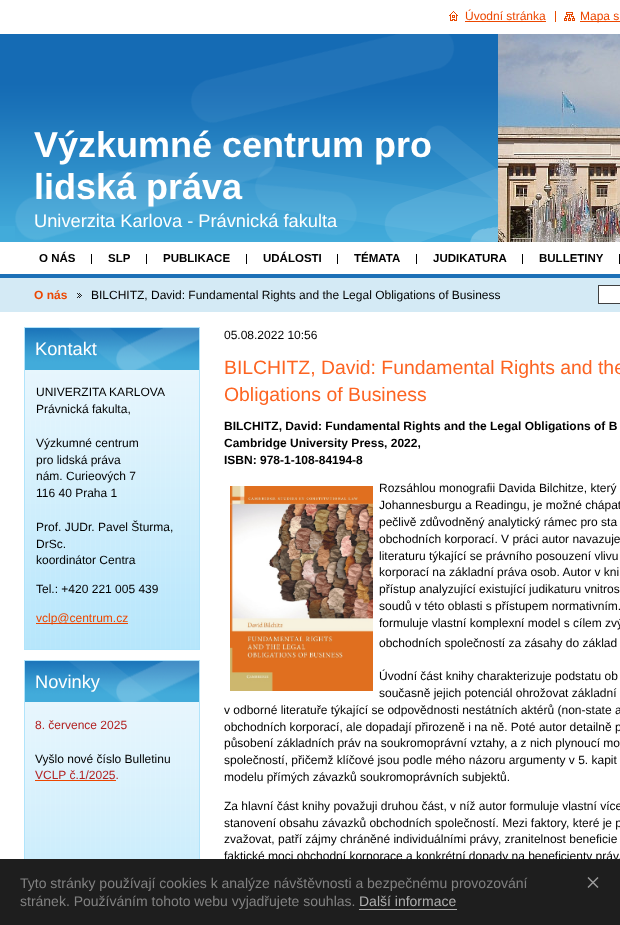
<?xml version="1.0" encoding="UTF-8"?>
<svg xmlns="http://www.w3.org/2000/svg" width="620" height="925">
    <rect width="100%" height="100%" fill="#FFFFFF"/>
    <image x="449" y="11" width="9" height="10" href="img_01.png"/>
    <text x="465" y="20" font-family="Liberation Sans" font-size="12" fill="#EC4700">Úvodní stránka</text>
    <rect x="465" y="21" width="81" height="1" fill="#EC4700"/>
    <image x="564" y="12" width="11" height="9" href="img_02.png"/>
    <rect x="580" y="21" width="40" height="1" fill="#EC4700"/>
    <text x="580" y="20" font-family="Liberation Sans" font-size="12" fill="#EC4700">Mapa s</text>
    <rect x="555" y="11" width="1" height="11" fill="#E84B00"/>
    <rect x="0" y="226" width="15" height="16" fill="#42ABDA"/>
    <image x="0" y="34" width="15" height="192" href="img_03.png"/>
    <image x="15" y="34" width="483" height="208" href="img_04.png"/>
    <text font-family="Liberation Sans" font-size="36" font-weight="700" fill="#FFFFFF">
        <tspan x="34" y="157">Výzkumné centrum pro</tspan>
        <tspan x="34" y="199">lidská práva</tspan>
    </text>
    <text x="34" y="227" font-family="Liberation Sans" font-size="18.25" fill="#FFFFFF">Univerzita Karlova - Právnická fakulta</text>
    <image x="498" y="34" width="122" height="208" href="img_05.png"/>
    <text x="39" y="262" font-family="Liberation Sans" font-size="11.5" font-weight="700" fill="#000000">O NÁS</text>
    <rect x="91" y="254" width="1" height="10" fill="#000000"/>
    <text x="108" y="262" font-family="Liberation Sans" font-size="11.5" font-weight="700" fill="#000000">SLP</text>
    <rect x="146" y="254" width="1" height="10" fill="#000000"/>
    <text x="163" y="262" font-family="Liberation Sans" font-size="11.5" font-weight="700" fill="#000000">PUBLIKACE</text>
    <rect x="246" y="254" width="1" height="10" fill="#000000"/>
    <text x="263" y="262" font-family="Liberation Sans" font-size="11.5" font-weight="700" fill="#000000">UDÁLOSTI</text>
    <rect x="337" y="254" width="1" height="10" fill="#000000"/>
    <text x="354" y="262" font-family="Liberation Sans" font-size="11.5" font-weight="700" fill="#000000">TÉMATA</text>
    <rect x="416" y="254" width="1" height="10" fill="#000000"/>
    <text x="433" y="262" font-family="Liberation Sans" font-size="11.5" font-weight="700" fill="#000000">JUDIKATURA</text>
    <rect x="522" y="254" width="1" height="10" fill="#000000"/>
    <text x="539" y="262" font-family="Liberation Sans" font-size="11.5" font-weight="700" fill="#000000">BULLETINY</text>
    <rect x="619" y="254" width="1" height="10" fill="#000000"/>
    <rect x="0" y="278" width="620" height="34" fill="#D4EAF5"/>
    <rect x="0" y="274" width="620" height="4" fill="#1C70B7"/>
    <text x="34" y="299" font-family="Liberation Sans" font-size="12" font-weight="700" fill="#EC4700">O nás</text>
    <image x="77" y="293" width="5" height="5" href="img_06.png"/>
    <text x="91" y="299" font-family="Liberation Sans" font-size="12" fill="#000000">BILCHITZ, David: Fundamental Rights and the Legal Obligations of Business</text>
    <rect x="598.5" y="285.5" width="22" height="18" fill="#FFFFFF" stroke="#404040"/>
    <text x="224" y="339" font-family="Liberation Sans" font-size="12" fill="#000000">05.08.2022 10:56</text>
    <text font-family="Liberation Sans" font-size="19.4" fill="#FD6422">
        <tspan x="224" y="374">BILCHITZ, David: Fundamental Rights and the</tspan>
        <tspan x="224" y="401">Obligations of Business</tspan>
    </text>
    <text font-family="Liberation Sans" font-size="12" font-weight="700" fill="#000000">
        <tspan x="224" y="430">BILCHITZ, David: Fundamental Rights and the Legal Obligations of B</tspan>
        <tspan x="224" y="447">Cambridge University Press, 2022,</tspan>
        <tspan x="224" y="464">ISBN: 978-1-108-84194-8</tspan>
    </text>
    <image x="230" y="486" width="143" height="205" href="img_07.png"/>
    <text font-family="Liberation Sans" font-size="12" fill="#000000">
        <tspan x="379" y="492">Rozsáhlou monografii Davida Bilchitze, který</tspan>
        <tspan x="379" y="509">Johannesburgu a Readingu, je možné chápat</tspan>
        <tspan x="379" y="526">pečlivě zdůvodněný analytický rámec pro sta</tspan>
        <tspan x="379" y="543">obchodních korporací. V práci autor navazuje</tspan>
        <tspan x="379" y="560">literaturu týkající se právního posouzení vlivu</tspan>
        <tspan x="379" y="576">korporací na základní práva osob. Autor v kni</tspan>
        <tspan x="379" y="593">přístup analyzující existující judikaturu vnitros</tspan>
        <tspan x="379" y="610">soudů v této oblasti s přístupem normativním.</tspan>
        <tspan x="379" y="627">formuluje vlastní komplexní model s cílem zvý</tspan>
        <tspan x="379" y="647">obchodních společností za zásahy do základ</tspan>
    </text>
    <text font-family="Liberation Sans" font-size="12" fill="#000000">
        <tspan x="379" y="680">Úvodní část knihy charakterizuje podstatu ob</tspan>
        <tspan x="379" y="697">současně jejich potenciál ohrožovat základní</tspan>
    </text>
    <text font-family="Liberation Sans" font-size="12" fill="#000000">
        <tspan x="224" y="714">v odborné literatuře týkající se odpovědnosti nestátních aktérů (non-state a</tspan>
        <tspan x="224" y="731">obchodních korporací, ale dopadají přirozeně i na ně. Poté autor detailně p</tspan>
        <tspan x="224" y="747">působení základních práv na soukromoprávní vztahy, a z nich plynoucí mo</tspan>
        <tspan x="224" y="764">společností, přičemž klíčové jsou podle mého názoru argumenty v 5. kapit</tspan>
        <tspan x="224" y="781">modelu přímých závazků soukromoprávních subjektů.</tspan>
    </text>
    <text font-family="Liberation Sans" font-size="12" fill="#000000">
        <tspan x="224" y="810">Za hlavní část knihy považuji druhou část, v níž autor formuluje vlastní více</tspan>
        <tspan x="224" y="827">stanovení obsahu závazků obchodních společností. Mezi faktory, které je p</tspan>
        <tspan x="224" y="843">zvažovat, patří zájmy chráněné individuálními právy, zranitelnost beneficie</tspan>
        <tspan x="224" y="860">faktické moci obchodní korporace a konkrétní dopady na beneficienty práv.</tspan>
    </text>
    <image x="25" y="370" width="174" height="279" href="img_08.png"/>
    <rect x="24.5" y="327.5" width="175" height="322" fill="none" stroke="#B1E4FB"/>
    <image x="25" y="328" width="174" height="42" href="img_09.png"/>
    <text x="35" y="355" font-family="Liberation Sans" font-size="18.25" fill="#FFFFFF">Kontakt</text>
    <text font-family="Liberation Sans" font-size="12" fill="#000000">
        <tspan x="36" y="396">UNIVERZITA KARLOVA</tspan>
        <tspan x="36" y="413">Právnická fakulta,</tspan>
    </text>
    <text font-family="Liberation Sans" font-size="12" fill="#000000">
        <tspan x="36" y="447">Výzkumné centrum</tspan>
        <tspan x="36" y="464">pro lidská práva</tspan>
        <tspan x="36" y="480">nám. Curieových 7</tspan>
        <tspan x="36" y="497">116 40 Praha 1</tspan>
    </text>
    <text font-family="Liberation Sans" font-size="12" fill="#000000">
        <tspan x="36" y="531">Prof. JUDr. Pavel Šturma,</tspan>
        <tspan x="36" y="548">DrSc.</tspan>
        <tspan x="36" y="564">koordinátor Centra</tspan>
    </text>
    <text x="36" y="593" font-family="Liberation Sans" font-size="12" fill="#000000">Tel.: +420 221 005 439</text>
    <rect x="36" y="623" width="92" height="1" fill="#EC4700"/>
    <text x="36" y="622" font-family="Liberation Sans" font-size="12" fill="#EC4700">vclp@centrum.cz</text>
    <image x="25" y="702" width="174" height="157" href="img_10.png"/>
    <rect x="24.5" y="660.5" width="175" height="217" fill="none" stroke="#B1E4FB"/>
    <image x="25" y="661" width="174" height="41" href="img_11.png"/>
    <text x="35" y="688" font-family="Liberation Sans" font-size="18.25" fill="#FFFFFF">Novinky</text>
    <text x="35" y="729" font-family="Liberation Sans" font-size="12" fill="#B22222">8. července 2025</text>
    <text x="35" y="763" font-family="Liberation Sans" font-size="12" fill="#000000">Vyšlo nové číslo Bulletinu</text>
    <text x="35" y="779" font-family="Liberation Sans" font-size="12" fill="#B22222">VCLP č.1/2025.</text>
    <rect x="35" y="780" width="81" height="1" fill="#EC4700"/>
    <rect x="0" y="859" width="620" height="66" fill="#1E1E1E"/>
    <text font-family="Liberation Sans" font-size="14" fill="#828282">
        <tspan x="20" y="888">Tyto stránky používají cookies k analýze návštěvnosti a bezpečnému provozování</tspan>
        <tspan x="20" y="906">stránek. Používáním tohoto webu vyjadřujete souhlas.</tspan>
    </text>
    <text x="359" y="906" font-family="Liberation Sans" font-size="14" fill="#AFAFAF">Další informace</text>
    <rect x="359" y="909" width="98" height="1" fill="#AFAFAF"/>
    <path d="M 588.5 877 L 598.5 887 L 597.5 888 L 587.5 878 Z" fill="#9E9E9E"/>
    <path d="M 587.5 887 L 597.5 877 L 598.5 878 L 588.5 888 Z" fill="#9E9E9E"/>
</svg>
